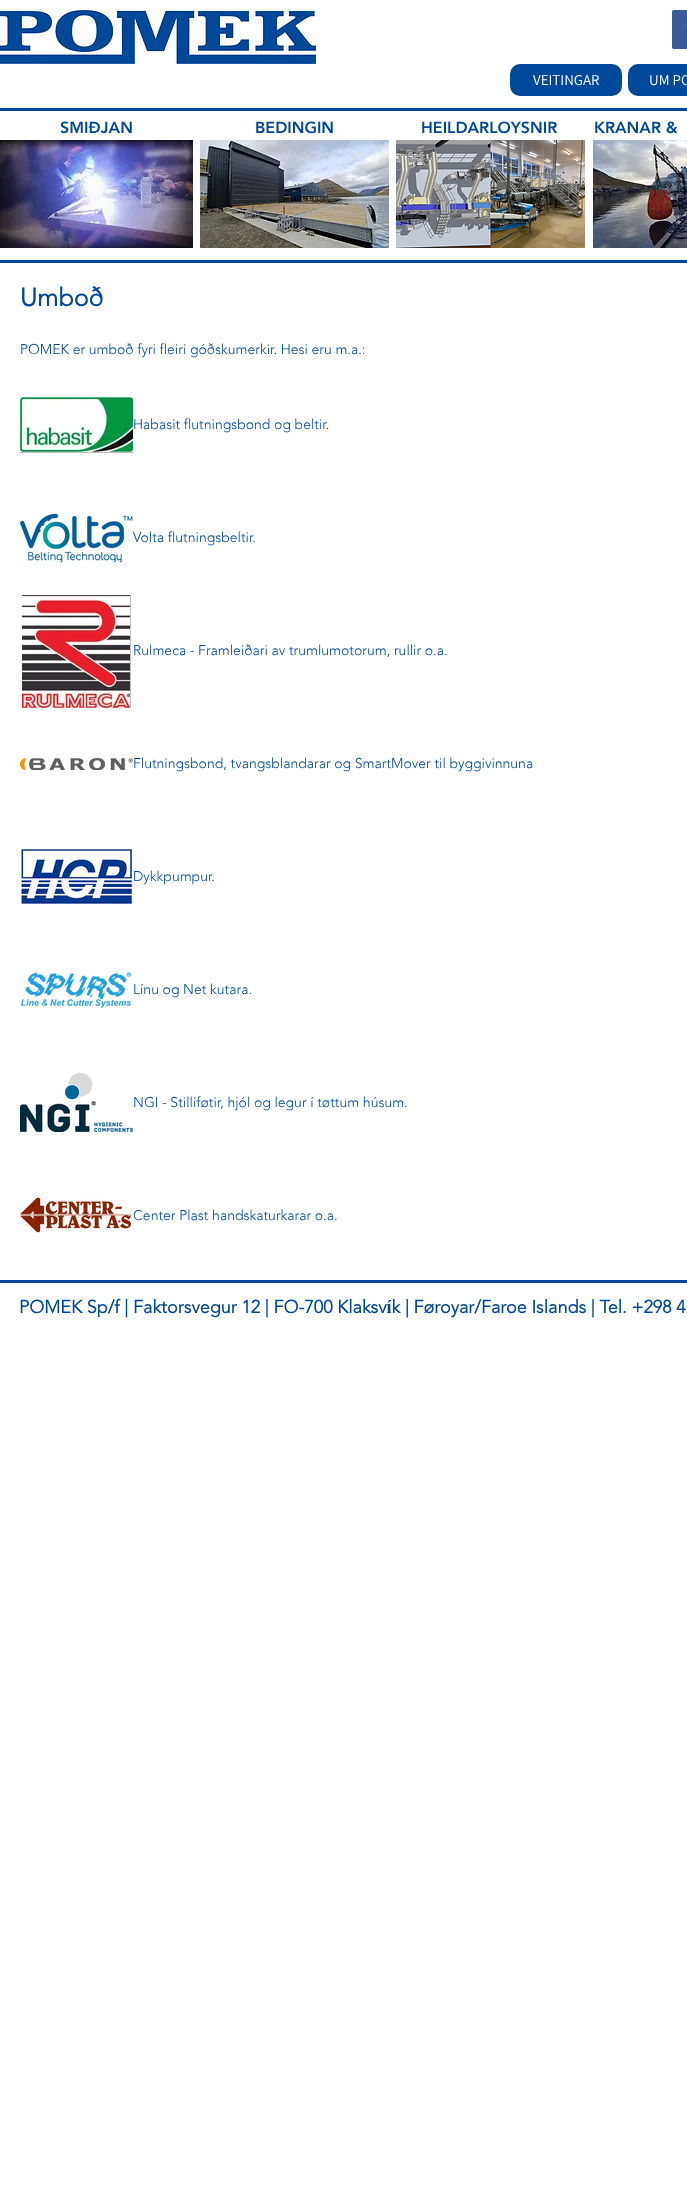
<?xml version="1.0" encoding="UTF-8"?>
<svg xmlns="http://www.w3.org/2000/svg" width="687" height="2205">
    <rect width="100%" height="100%" fill="#FFFFFF"/>
    <image x="0" y="10" width="316" height="54" href="img_01.png"/>
    <image x="672" y="10" width="15" height="39" href="img_02.png"/>
    <rect x="510" y="64" width="112" height="32" rx="10" fill="#004899"/>
    <text x="533" y="85" font-family="Assistant" font-size="15" fill="#FFFFFF">VEITINGAR</text>
    <rect x="628" y="64" width="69" height="32" rx="10" fill="#004899"/>
    <text x="649" y="85" font-family="Assistant" font-size="15" fill="#FFFFFF">UM PO</text>
    <rect x="0" y="108" width="687" height="3" fill="#004899"/>
    <text x="60" y="133" font-family="'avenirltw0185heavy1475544'" font-size="16" font-weight="900" fill="#004899">SMIÐJAN</text>
    <text x="255" y="133" font-family="'avenirltw0185heavy1475544'" font-size="16" font-weight="900" fill="#004899">BEDINGIN</text>
    <text x="421" y="133" font-family="'avenirltw0185heavy1475544'" font-size="16" font-weight="900" fill="#004899">HEILDARLOYSNIR</text>
    <text x="594" y="133" font-family="'avenirltw0185heavy1475544'" font-size="16" font-weight="900" fill="#004899">KRANAR &amp;</text>
    <image x="0" y="140" width="193" height="108" href="img_03.png"/>
    <image x="200" y="140" width="189" height="108" href="img_04.png"/>
    <image x="396" y="140" width="189" height="108" href="img_05.png"/>
    <image x="593" y="140" width="94" height="108" href="img_06.png"/>
    <rect x="0" y="260" width="687" height="3" fill="#004899"/>
    <text x="20" y="306" font-family="'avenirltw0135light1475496'" font-size="25" font-weight="700" fill="#004899">Umboð</text>
    <text x="20" y="354" font-family="'avenirltw0135light1475496'" font-size="14" font-weight="300" fill="#004899">POMEK er umboð fyri fleiri góðskumerkir. Hesi eru m.a.:</text>
    <rect x="20" y="452" width="113" height="1" fill="#BFBFBF"/>
    <image x="20" y="397" width="113" height="55" href="img_07.png"/>
    <text x="133" y="429" font-family="'avenirltw0135light1475496'" font-size="14" font-weight="300" fill="#004899">Habasit flutningsbond og beltir.</text>
    <image x="20" y="513" width="113" height="50" href="img_08.png"/>
    <text x="133" y="542" font-family="'avenirltw0135light1475496'" font-size="14" font-weight="300" fill="#004899">Volta flutningsbeltir.</text>
    <rect x="130" y="595" width="1" height="113" fill="#BFBFBF"/>
    <image x="22" y="595" width="108" height="113" href="img_09.png"/>
    <text x="133" y="655" font-family="'avenirltw0135light1475496'" font-size="14" font-weight="300" fill="#004899">Rulmeca - Framleiðari av trumlumotorum, rullir o.a.</text>
    <image x="20" y="758" width="113" height="12" href="img_10.png"/>
    <text x="133" y="768" font-family="'avenirltw0135light1475496'" font-size="14" font-weight="300" fill="#004899">Flutningsbond, tvangsblandarar og SmartMover til byggivinnuna</text>
    <image x="21" y="849" width="112" height="55" href="img_11.png"/>
    <text x="133" y="881" font-family="'avenirltw0135light1475496'" font-size="14" font-weight="300" fill="#004899">Dykkpumpur.</text>
    <image x="20" y="972" width="112" height="36" href="img_12.png"/>
    <text x="133" y="994" font-family="'avenirltw0135light1475496'" font-size="14" font-weight="300" fill="#004899">Línu og Net kutara.</text>
    <image x="20" y="1073" width="113" height="59" href="img_13.png"/>
    <text x="133" y="1107" font-family="'avenirltw0135light1475496'" font-size="14" font-weight="300" fill="#004899">NGI - Stilliføtir, hjól og legur í tøttum húsum.</text>
    <image x="20" y="1197" width="112" height="36" href="img_14.png"/>
    <text x="133" y="1220" font-family="'avenirltw0135light1475496'" font-size="14" font-weight="300" fill="#004899">Center Plast handskaturkarar o.a.</text>
    <rect x="0" y="1280" width="687" height="3" fill="#004899"/>
    <text x="19" y="1313" font-family="'avenirltw0135light1475496'" font-size="18" font-weight="700" fill="#004899">POMEK Sp/f | Faktorsvegur 12 | FO-700 Klaksvík | Føroyar/Faroe Islands | Tel. +298 4</text>
</svg>
